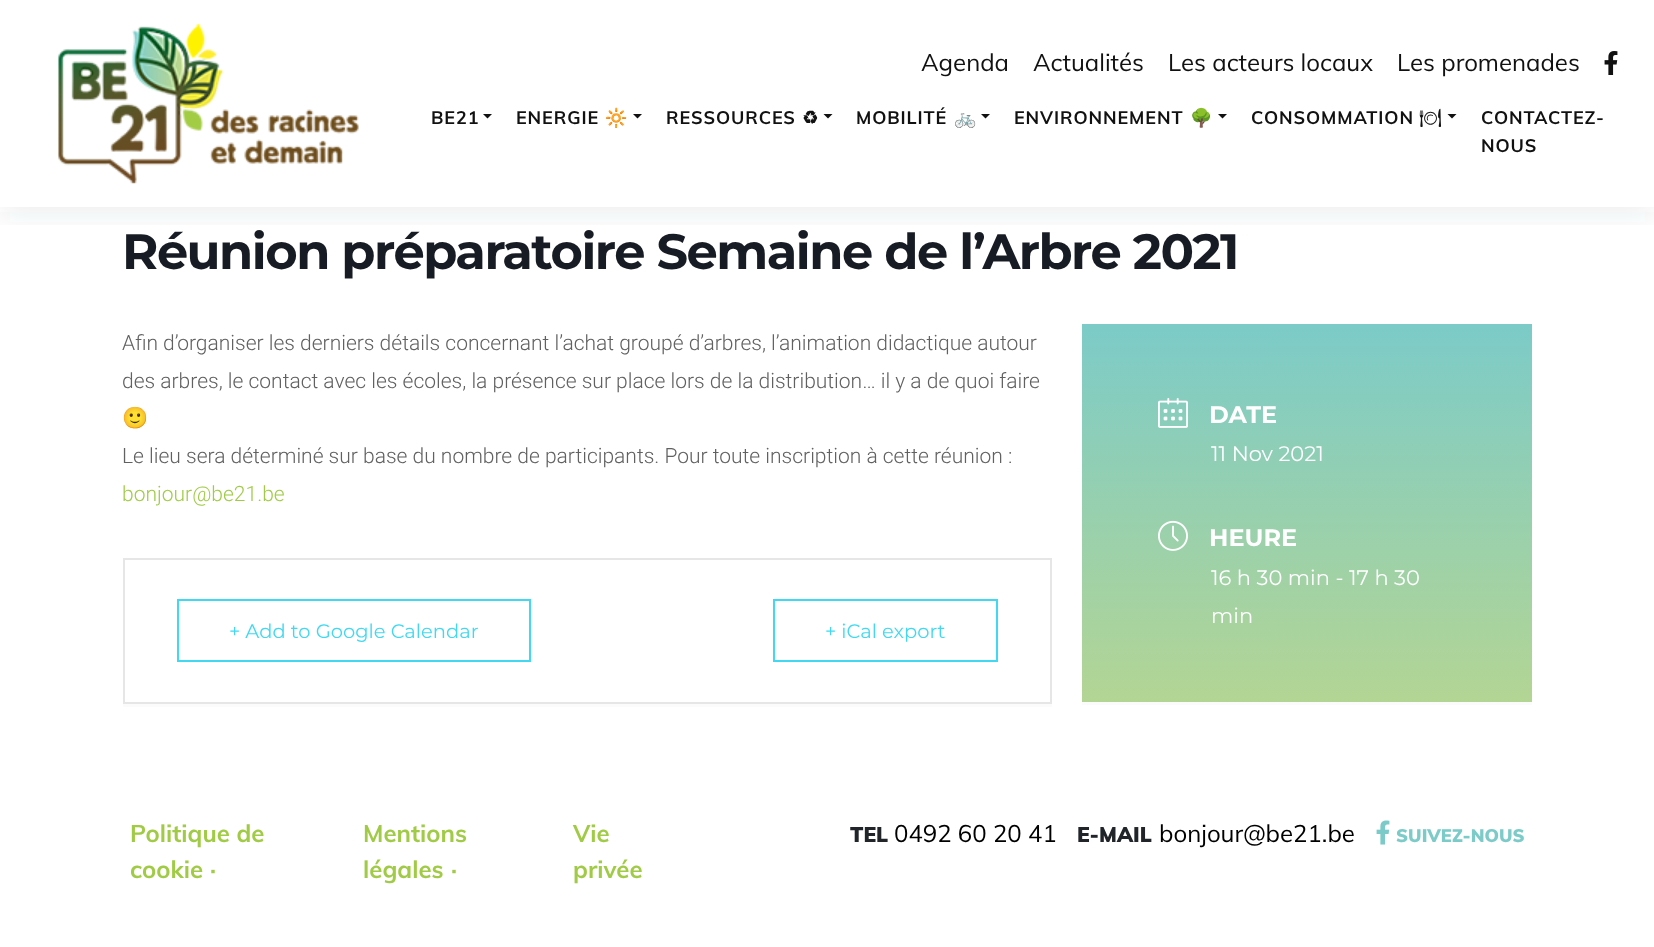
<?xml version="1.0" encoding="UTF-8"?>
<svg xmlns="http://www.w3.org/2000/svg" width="1654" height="947">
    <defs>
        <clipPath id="clip1"><rect x="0" y="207" width="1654" height="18"/></clipPath>
        <filter id="blur1" x="-50%" y="-200%" width="200%" height="500%"><feGaussianBlur stdDeviation="15"/></filter>
        <linearGradient id="g1" gradientUnits="userSpaceOnUse" x1="1307" y1="324" x2="1307" y2="702"><stop offset="0" stop-color="#7CCBC8"/><stop offset="1" stop-color="#B3D594"/></linearGradient>
    </defs>
    <rect width="100%" height="100%" fill="#FFFFFF"/>
    <g clip-path="url(#clip1)">
        <rect x="0" y="5" width="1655" height="207" fill="#324A49" fill-opacity="0.1" filter="url(#blur1)"/>
    </g>
    <image x="58" y="23" width="301" height="161" href="img_01.png"/>
    <text x="921" y="71" font-family="Muli" font-size="24" fill="#111111">Agenda</text>
    <text x="1033" y="71" font-family="Muli" font-size="24" fill="#111111">Actualités</text>
    <text x="1168" y="71" font-family="Muli" font-size="24" fill="#111111">Les acteurs locaux</text>
    <text x="1397" y="71" font-family="Muli" font-size="24" fill="#111111">Les promenades</text>
    <image x="1604" y="51" width="14" height="24" href="img_02.png"/>
    <text x="431" y="124" font-family="Muli" font-size="18" font-weight="700" letter-spacing="0.9" fill="#111111">BE21</text>
    <path d="M 483 114 H 492 L 487.5 118.5 Z" fill="#111111"/>
    <text x="516" y="124" font-family="Muli" font-size="18" font-weight="700" letter-spacing="0.9" fill="#111111">ENERGIE</text>
    <text x="605" y="124" font-family="Noto Color Emoji" font-size="18" font-weight="700" letter-spacing="0.9" fill="#111111">🔆</text>
    <path d="M 633 114 H 642 L 637.5 118.5 Z" fill="#111111"/>
    <text x="666" y="124" font-family="Muli" font-size="18" font-weight="700" letter-spacing="0.9" fill="#111111">RESSOURCES</text>
    <text x="802" y="124" font-family="DejaVu Sans" font-size="18" font-weight="700" letter-spacing="0.9" fill="#111111">♻</text>
    <path d="M 823.5 114 H 832.5 L 828 118.5 Z" fill="#111111"/>
    <text x="856" y="124" font-family="Muli" font-size="18" font-weight="700" letter-spacing="0.9" fill="#111111">MOBILITÉ</text>
    <text x="954" y="124" font-family="Noto Color Emoji" font-size="18" font-weight="700" letter-spacing="0.9" fill="#111111">🚲</text>
    <path d="M 981 114 H 990 L 985.5 118.5 Z" fill="#111111"/>
    <text x="1014" y="124" font-family="Muli" font-size="18" font-weight="700" letter-spacing="0.9" fill="#111111">ENVIRONNEMENT</text>
    <text x="1190" y="124" font-family="Noto Color Emoji" font-size="18" font-weight="700" letter-spacing="0.9" fill="#111111">🌳</text>
    <path d="M 1218 114 H 1227 L 1222.5 118.5 Z" fill="#111111"/>
    <text x="1251" y="124" font-family="Muli" font-size="18" font-weight="700" letter-spacing="0.9" fill="#111111">CONSOMMATION</text>
    <text x="1419" y="124" font-family="Noto Emoji" font-size="18" font-weight="700" letter-spacing="0.9" fill="#111111">🍽</text>
    <path d="M 1447.5 114 H 1456.5 L 1452 118.5 Z" fill="#111111"/>
    <text font-family="Muli" font-size="18" font-weight="700" letter-spacing="0.9" fill="#111111">
        <tspan x="1481" y="124">CONTACTEZ-</tspan>
        <tspan x="1481" y="152">NOUS</tspan>
    </text>
    <text x="122" y="269" font-family="Montserrat" font-size="49.5" font-weight="700" letter-spacing="-1.5" fill="#171C24">Réunion préparatoire Semaine de l’Arbre 2021</text>
    <text font-family="Roboto" font-size="21" font-weight="300" fill="#616161">
        <tspan x="122" y="350">Afin d’organiser les derniers détails concernant l’achat groupé d’arbres, l’animation didactique autour</tspan>
        <tspan x="122" y="388">des arbres, le contact avec les écoles, la présence sur place lors de la distribution… il y a de quoi faire</tspan>
    </text>
    <text x="122" y="425" font-family="Noto Color Emoji" font-size="21" fill="#616161">🙂</text>
    <text x="122" y="463" font-family="Roboto" font-size="21" font-weight="300" fill="#616161">Le lieu sera déterminé sur base du nombre de participants. Pour toute inscription à cette réunion :</text>
    <text x="122" y="501" font-family="Roboto" font-size="21" font-weight="300" fill="#A1CB46">bonjour@be21.be</text>
    <path d="M 123 704 V 707 H 1052 V 561 V 704 Z" fill="#FBFBFB"/>
    <rect x="124" y="559" width="927" height="144" fill="none" stroke="#E6E6E6" stroke-width="2"/>
    <rect x="178" y="600" width="352" height="61" fill="none" stroke="#40D9F1" stroke-width="2"/>
    <text x="229" y="638" font-family="Montserrat" font-size="19.5" fill="#40D9F1">+ Add to Google Calendar</text>
    <rect x="774" y="600" width="223" height="61" fill="none" stroke="#40D9F1" stroke-width="2"/>
    <text x="825" y="638" font-family="Montserrat" font-size="19.5" fill="#40D9F1">+ iCal export</text>
    <path d="M 1082 702 V 705 H 1532 V 327 V 702 Z" fill="#FBFBFB"/>
    <rect x="1082" y="324" width="450" height="378" fill="url(#g1)"/>
    <image x="1158" y="397" width="30" height="31" href="img_03.png"/>
    <text x="1209" y="423" font-family="Montserrat" font-size="24" font-weight="700" fill="#FFFFFF">DATE</text>
    <text x="1211" y="461" font-family="Montserrat" font-size="21" fill="#FFFFFF">11 Nov 2021</text>
    <image x="1158" y="520" width="30" height="31" href="img_04.png"/>
    <text x="1209" y="546" font-family="Montserrat" font-size="24" font-weight="700" fill="#FFFFFF">HEURE</text>
    <text font-family="Montserrat" font-size="21" fill="#FFFFFF">
        <tspan x="1211" y="585">16 h 30 min - 17 h 30</tspan>
        <tspan x="1211" y="623">min</tspan>
    </text>
    <text font-family="Muli" font-size="24" font-weight="700" fill="#A1CB46">
        <tspan x="130" y="842">Politique de</tspan>
        <tspan x="130" y="878">cookie</tspan>
    </text>
    <text x="210" y="878" font-family="Muli" font-size="24" font-weight="700" fill="#A1CB46">·</text>
    <text font-family="Muli" font-size="24" font-weight="700" fill="#A1CB46">
        <tspan x="363" y="842">Mentions</tspan>
        <tspan x="363" y="878">légales</tspan>
    </text>
    <text x="451" y="878" font-family="Muli" font-size="24" font-weight="700" fill="#A1CB46">·</text>
    <text font-family="Muli" font-size="24" font-weight="700" fill="#A1CB46">
        <tspan x="573" y="842">Vie</tspan>
        <tspan x="573" y="878">privée</tspan>
    </text>
    <text x="850" y="842" font-family="Muli" font-size="21" font-weight="900" fill="#212529">TEL</text>
    <text x="894" y="842" font-family="Muli" font-size="24" fill="#000000">0492 60 20 41</text>
    <text x="1077" y="842" font-family="Muli" font-size="21" font-weight="900" fill="#212529">E-MAIL</text>
    <text x="1159" y="842" font-family="Muli" font-size="24" fill="#000000">bonjour@be21.be</text>
    <image x="1376" y="820" width="14" height="25" href="img_05.png"/>
    <text x="1396" y="842" font-family="Muli" font-size="18" font-weight="900" fill="#7CCBC8">SUIVEZ-NOUS</text>
</svg>
